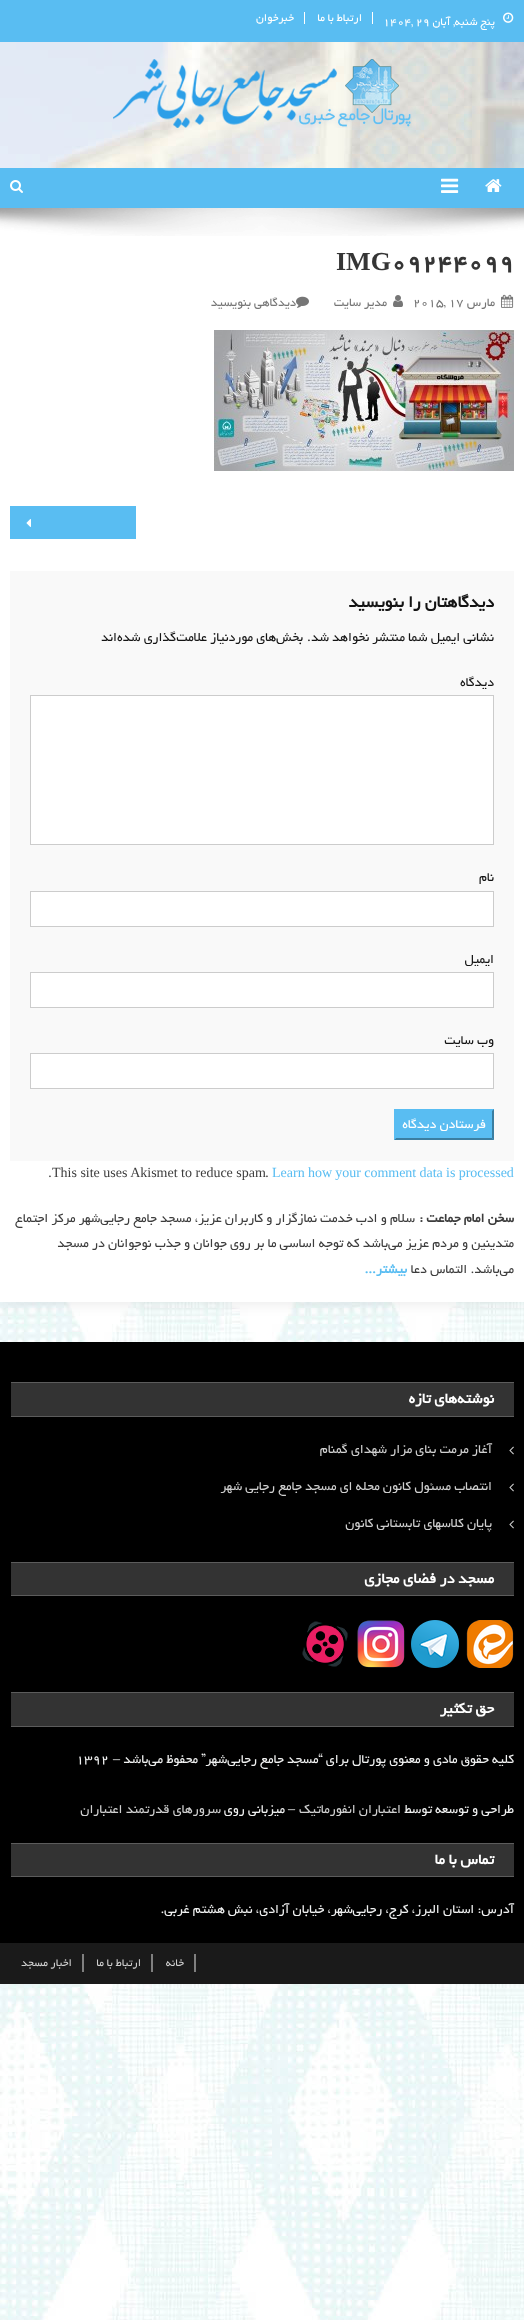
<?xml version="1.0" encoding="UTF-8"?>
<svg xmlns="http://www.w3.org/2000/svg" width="524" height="2320">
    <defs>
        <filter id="blur1" x="-50%" y="-200%" width="200%" height="500%"><feGaussianBlur stdDeviation="7.5"/></filter>
    </defs>
    <rect width="100%" height="100%" fill="#FFFFFF"/>
    <image x="0" y="1302" width="524" height="1018" href="img_01.png"/>
    <rect x="0" y="0" width="524" height="1302" fill="#000000" fill-opacity="0.1" filter="url(#blur1)"/>
    <rect x="0" y="208" width="524" height="1094" fill="#FFFFFF"/>
    <rect x="0" y="0" width="524" height="42" fill="#59BDF2"/>
    <image x="503" y="12" width="11" height="11" href="img_02.png"/>
    <text x="495" y="25" font-family="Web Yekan" font-size="12" direction="rtl" fill="#FFFFFF">پنج شنبه, آبان</text>
    <text x="383" y="25" font-family="Web Yekan" font-size="12" fill="#FFFFFF">۱۴۰۴, ۲۹</text>
    <rect x="372" y="12" width="1" height="12" fill="#FFFFFF"/>
    <text x="362" y="21" font-family="Web Yekan" font-size="12" direction="rtl" fill="#FFFFFF">ارتباط با ما</text>
    <rect x="304" y="12" width="1" height="12" fill="#FFFFFF"/>
    <text x="294" y="21" font-family="Web Yekan" font-size="12" direction="rtl" fill="#FFFFFF">خبرخوان</text>
    <image x="0" y="42" width="524" height="126" href="img_03.png"/>
    <image x="113" y="59" width="299" height="69" href="img_04.png"/>
    <rect x="0" y="168" width="524" height="40" fill="#59BDF2"/>
    <image x="485" y="179" width="17" height="13" href="img_05.png"/>
    <image x="441" y="178" width="18" height="15" href="img_06.png"/>
    <image x="10" y="180" width="13" height="13" href="img_07.png"/>
    <image x="0" y="208" width="524" height="28" href="img_08.png"/>
    <text x="391" y="270" font-family="Web Yekan" font-size="26" font-weight="700" fill="#353535">09244099</text>
    <text x="336" y="270" font-family="Liberation Serif" font-size="26" font-weight="700" fill="#353535">IMG</text>
    <image x="501" y="294" width="13" height="14" href="img_09.png"/>
    <text x="495" y="306" font-family="Web Yekan" font-size="13" direction="rtl" fill="#767676">مارس</text>
    <text x="413" y="306" font-family="Web Yekan" font-size="13" fill="#767676">2015, 17</text>
    <image x="393" y="295" width="10" height="12" href="img_10.png"/>
    <text x="387" y="306" font-family="Web Yekan" font-size="13" direction="rtl" fill="#767676">مدیر سایت</text>
    <image x="296" y="296" width="13" height="12" href="img_11.png"/>
    <text x="296" y="306" font-family="Web Yekan" font-size="13" direction="rtl" fill="#767676">دیدگاهی بنویسید</text>
    <image x="214" y="330" width="300" height="141" href="img_12.png"/>
    <rect x="10" y="506" width="126" height="33" fill="#59BDF2"/>
    <image x="26" y="519" width="5" height="8" href="img_13.png"/>
    <rect x="10" y="571" width="504" height="590" fill="#F9F9F9"/>
    <text x="494" y="607" font-family="Web Yekan" font-size="18" font-weight="700" direction="rtl" fill="#141414">دیدگاهتان را بنویسید</text>
    <text x="494" y="641" font-family="Web Yekan" font-size="14" direction="rtl" fill="#141414">نشانی ایمیل شما منتشر نخواهد شد.</text>
    <text x="303" y="641" font-family="Web Yekan" font-size="14" direction="rtl" fill="#141414">بخش‌های موردنیاز علامت‌گذاری شده‌اند</text>
    <text x="494" y="686" font-family="Web Yekan" font-size="14" direction="rtl" fill="#141414">دیدگاه</text>
    <rect x="30.5" y="695.5" width="463" height="149" fill="#FFFFFF" stroke="#CCCCCC"/>
    <text x="494" y="881" font-family="Web Yekan" font-size="14" direction="rtl" fill="#141414">نام</text>
    <rect x="30.5" y="891.5" width="463" height="35" fill="#FFFFFF" stroke="#CCCCCC"/>
    <text x="494" y="963" font-family="Web Yekan" font-size="14" direction="rtl" fill="#141414">ایمیل</text>
    <rect x="30.5" y="972.5" width="463" height="35" fill="#FFFFFF" stroke="#CCCCCC"/>
    <text x="494" y="1044" font-family="Web Yekan" font-size="14" direction="rtl" fill="#141414">وب‌ سایت</text>
    <rect x="30.5" y="1053.5" width="463" height="35" fill="#FFFFFF" stroke="#CCCCCC"/>
    <rect x="394" y="1109" width="100" height="31" fill="#59BDF2"/>
    <path d="M 494 1109 V 1140 L 492 1138 V 1111 Z" fill="#3B7EA1"/>
    <path d="M 494 1140 H 394 L 396 1138 H 492 Z" fill="#3B7EA1"/>
    <path d="M 394 1140 V 1109 L 396 1111 V 1138 Z" fill="#59BDF2"/>
    <text x="486" y="1128" font-family="Web Yekan" font-size="14" direction="rtl" fill="#FFFFFF">فرستادن دیدگاه</text>
    <text x="272" y="1177" word-spacing="-0.25" font-family="Liberation Serif" font-size="14" fill="#59BDF2">Learn how your comment data is processed</text>
    <text x="265" y="1177" font-family="Web Yekan" font-size="14" fill="#3D3D3D">.</text>
    <text x="52" y="1177" font-family="Liberation Serif" font-size="14" fill="#3D3D3D">This site uses Akismet to reduce spam</text>
    <text x="48" y="1177" font-family="Web Yekan" font-size="14" fill="#3D3D3D">.</text>
    <text x="514" y="1222" font-family="Web Yekan" font-size="14" font-weight="700" direction="rtl" fill="#3D3D3D">سخن امام جماعت :</text>
    <text x="415" y="1222" font-family="Web Yekan" font-size="14" direction="rtl" fill="#3D3D3D">سلام و ادب خدمت نمازگزار و کاربران عزیز، مسجد جامع رجایی‌شهر مرکز اجتماع</text>
    <text font-family="Web Yekan" font-size="14" direction="rtl" fill="#3D3D3D">
        <tspan x="514" y="1247">متدینین و مردم عزیز می‌باشد که توجه اساسی ما بر روی جوانان و جذب نوجوانان در مسجد</tspan>
        <tspan x="514" y="1273">می‌باشد. التماس دعا</tspan>
    </text>
    <text x="407" y="1273" font-family="Web Yekan" font-size="14" font-weight="700" direction="rtl" fill="#59BDF2">بیشتر...</text>
    <rect x="0" y="1342" width="524" height="601" fill="#000000"/>
    <rect x="11" y="1383" width="503" height="33" fill="#333333"/>
    <rect x="11" y="1382" width="503" height="1" fill="#5C5C5C"/>
    <rect x="11" y="1416" width="503" height="1" fill="#5C5C5C"/>
    <text x="494" y="1403" font-family="Web Yekan" font-size="16" font-weight="700" direction="rtl" fill="#FFFFFF">نوشته‌های تازه</text>
    <image x="509" y="1446" width="5" height="9" href="img_14.png"/>
    <text x="492" y="1453" font-family="Web Yekan" font-size="14" direction="rtl" fill="#CFCFCF">آغاز مرمت بنای مزار شهدای گمنام</text>
    <image x="509" y="1483" width="5" height="9" href="img_14.png"/>
    <text x="492" y="1490" font-family="Web Yekan" font-size="14" direction="rtl" fill="#CFCFCF">انتصاب مسئول کانون محله ای مسجد جامع رجایی شهر</text>
    <image x="509" y="1520" width="5" height="9" href="img_14.png"/>
    <text x="492" y="1527" font-family="Web Yekan" font-size="14" direction="rtl" fill="#CFCFCF">پایان کلاسهای تابستانی کانون</text>
    <rect x="11" y="1563" width="503" height="32" fill="#333333"/>
    <rect x="11" y="1562" width="503" height="1" fill="#5C5C5C"/>
    <rect x="11" y="1595" width="503" height="1" fill="#5C5C5C"/>
    <text x="494" y="1583" font-family="Web Yekan" font-size="16" font-weight="700" direction="rtl" fill="#FFFFFF">مسجد در فضای مجازی</text>
    <image x="466" y="1620" width="48" height="48" href="img_15.png"/>
    <image x="411" y="1620" width="48" height="48" href="img_16.png"/>
    <image x="357" y="1620" width="48" height="48" href="img_17.png"/>
    <image x="302" y="1621" width="46" height="46" href="img_18.png"/>
    <rect x="11" y="1693" width="503" height="33" fill="#333333"/>
    <rect x="11" y="1692" width="503" height="1" fill="#5C5C5C"/>
    <rect x="11" y="1726" width="503" height="1" fill="#5C5C5C"/>
    <text x="494" y="1713" font-family="Web Yekan" font-size="16" font-weight="700" direction="rtl" fill="#FFFFFF">حق تکثیر</text>
    <text x="514" y="1763" font-family="Web Yekan" font-size="14" direction="rtl" fill="#F0F1F1">کلیه حقوق مادی و معنوی پورتال برای “مسجد جامع رجایی‌شهر” محفوظ می‌باشد</text>
    <text x="120" y="1763" font-family="Liberation Serif" font-size="14" direction="rtl" fill="#F0F1F1">–</text>
    <text x="76" y="1763" font-family="Web Yekan" font-size="14" fill="#F0F1F1">۱۳۹۲</text>
    <text x="514" y="1813" font-family="Web Yekan" font-size="14" direction="rtl" fill="#F0F1F1">طراحی و توسعه توسط</text>
    <text x="401" y="1813" font-family="Web Yekan" font-size="14" direction="rtl" fill="#CFCFCF">اعتباران انفورماتیک</text>
    <text x="295" y="1813" font-family="Liberation Serif" font-size="14" direction="rtl" fill="#F0F1F1">–</text>
    <text x="285" y="1813" font-family="Web Yekan" font-size="14" direction="rtl" fill="#F0F1F1">میزبانی روی</text>
    <text x="221" y="1813" font-family="Web Yekan" font-size="14" direction="rtl" fill="#CFCFCF">سرورهای قدرتمند اعتباران</text>
    <rect x="11" y="1844" width="503" height="32" fill="#333333"/>
    <rect x="11" y="1843" width="503" height="1" fill="#5C5C5C"/>
    <rect x="11" y="1876" width="503" height="1" fill="#5C5C5C"/>
    <text x="494" y="1864" font-family="Web Yekan" font-size="16" font-weight="700" direction="rtl" fill="#FFFFFF">تماس با ما</text>
    <text x="514" y="1913" font-family="Web Yekan" font-size="14" direction="rtl" fill="#F0F1F1">آدرس: استان البرز، کرج، رجایی‌شهر، خیابان آزادی، نبش هشتم غربی.</text>
    <rect x="0" y="1943" width="524" height="41" fill="#1A1A1A"/>
    <text x="184" y="1966" font-family="Web Yekan" font-size="12" direction="rtl" fill="#CFCFCF">خانه</text>
    <rect x="194" y="1954" width="2" height="18" fill="#7F7F7F"/>
    <text x="141" y="1966" font-family="Web Yekan" font-size="12" direction="rtl" fill="#CFCFCF">ارتباط با ما</text>
    <rect x="151" y="1954" width="2" height="18" fill="#7F7F7F"/>
    <text x="72" y="1966" font-family="Web Yekan" font-size="12" direction="rtl" fill="#CFCFCF">اخبار مسجد</text>
    <rect x="82" y="1954" width="2" height="18" fill="#7F7F7F"/>
</svg>
